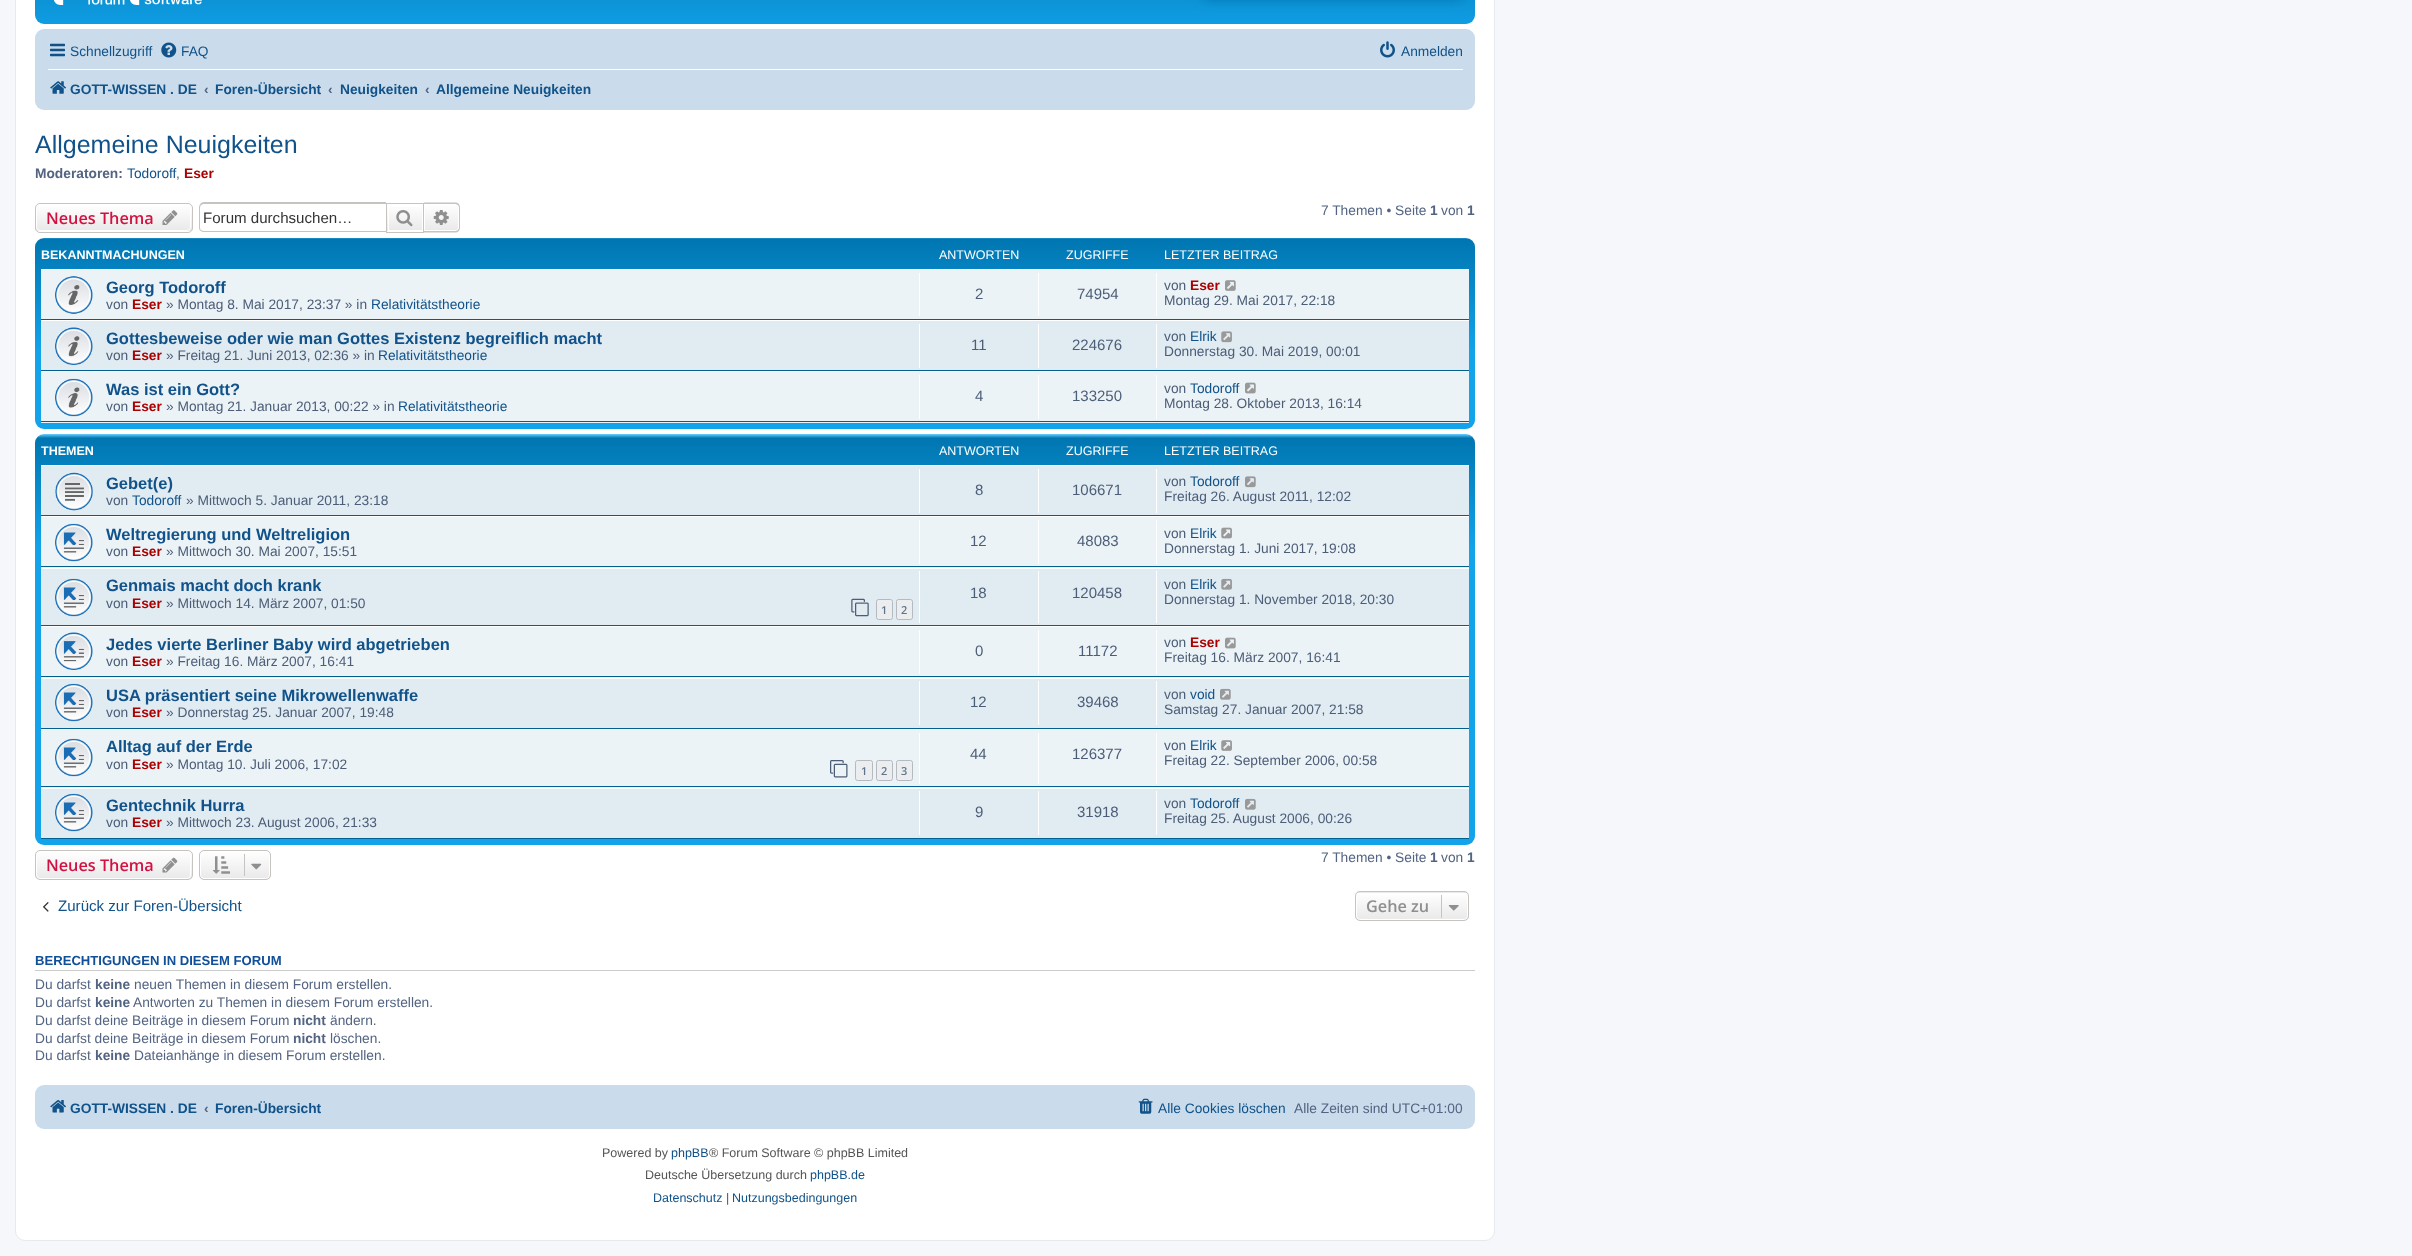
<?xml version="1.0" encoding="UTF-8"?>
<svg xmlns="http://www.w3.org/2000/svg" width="2412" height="1256">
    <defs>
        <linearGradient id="g1" gradientUnits="userSpaceOnUse" x1="755" y1="-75" x2="755" y2="40"><stop offset="0" stop-color="#6ACEFF"/><stop offset="0.02" stop-color="#0076B1"/><stop offset="1" stop-color="#12A3EB"/></linearGradient>
        <filter id="blur1" x="-50%" y="-200%" width="200%" height="500%"><feGaussianBlur stdDeviation="6"/></filter>
        <clipPath id="clip1"><rect x="35" y="203" width="158" height="30" rx="5"/></clipPath>
        <linearGradient id="g2" gradientUnits="userSpaceOnUse" x1="114" y1="204" x2="114" y2="231"><stop offset="0" stop-color="#FFFFFF"/><stop offset="1" stop-color="#E9E9E9"/></linearGradient>
        <linearGradient id="g3" gradientUnits="userSpaceOnUse" x1="405" y1="204" x2="405" y2="231"><stop offset="0" stop-color="#FFFFFF"/><stop offset="1" stop-color="#E9E9E9"/></linearGradient>
        <linearGradient id="g4" gradientUnits="userSpaceOnUse" x1="441" y1="204" x2="441" y2="231"><stop offset="0" stop-color="#FFFFFF"/><stop offset="1" stop-color="#E9E9E9"/></linearGradient>
        <linearGradient id="g5" gradientUnits="userSpaceOnUse" x1="755" y1="237" x2="755" y2="429"><stop offset="0" stop-color="#6ACEFF"/><stop offset="0.01" stop-color="#0076B1"/><stop offset="0.6" stop-color="#12A3EB"/><stop offset="1" stop-color="#12A3EB"/></linearGradient>
        <linearGradient id="g6" gradientUnits="userSpaceOnUse" x1="755" y1="434" x2="755" y2="845"><stop offset="0" stop-color="#6ACEFF"/><stop offset="0.01" stop-color="#0076B1"/><stop offset="0.28" stop-color="#12A3EB"/><stop offset="1" stop-color="#12A3EB"/></linearGradient>
        <clipPath id="clip2"><rect x="35" y="850" width="158" height="30" rx="5"/></clipPath>
        <linearGradient id="g7" gradientUnits="userSpaceOnUse" x1="114" y1="851" x2="114" y2="879"><stop offset="0" stop-color="#FFFFFF"/><stop offset="1" stop-color="#E9E9E9"/></linearGradient>
        <clipPath id="clip3"><rect x="199" y="850" width="72" height="30" rx="5"/></clipPath>
        <linearGradient id="g8" gradientUnits="userSpaceOnUse" x1="235" y1="851" x2="235" y2="879"><stop offset="0" stop-color="#FFFFFF"/><stop offset="1" stop-color="#E9E9E9"/></linearGradient>
        <clipPath id="clip4"><rect x="1355" y="891" width="114" height="30" rx="5"/></clipPath>
        <linearGradient id="g9" gradientUnits="userSpaceOnUse" x1="1412" y1="865" x2="1412" y2="893"><stop offset="0" stop-color="#FFFFFF"/><stop offset="1" stop-color="#E9E9E9"/></linearGradient>
        <linearGradient id="g10" gradientUnits="userSpaceOnUse" x1="1412" y1="893" x2="1412" y2="920"><stop offset="0" stop-color="#FFFFFF"/><stop offset="1" stop-color="#E9E9E9"/></linearGradient>
    </defs>
    <rect width="100%" height="100%" fill="#F5F7FA"/>
    <rect x="15.5" y="-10.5" width="1479" height="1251" rx="9.5" fill="#FFFFFF" stroke="#E6E9ED"/>
    <rect x="35" y="-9" width="1440" height="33" rx="9" fill="url(#g1)"/>
    <image x="54" y="0" width="148" height="5" href="img_01.png"/>
    <rect x="1203" y="-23" width="260" height="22" rx="5" fill="#0075B0" filter="url(#blur1)"/>
    <rect x="35" y="29" width="1440" height="81" rx="9" fill="#CADCEB"/>
    <image x="50" y="43" width="15" height="14" href="img_02.png"/>
    <text x="70" y="56" font-family="Liberation Sans" font-size="13.75" fill="#105289">Schnellzugriff</text>
    <image x="161" y="42" width="16" height="16" href="img_03.png"/>
    <text x="181" y="56" font-family="Liberation Sans" font-size="13.75" fill="#105289">FAQ</text>
    <image x="1380" y="41" width="15" height="17" href="img_04.png"/>
    <text x="1401" y="56" font-family="Liberation Sans" font-size="13.75" fill="#105289">Anmelden</text>
    <rect x="48" y="69" width="1415" height="1" fill="#FFFFFF"/>
    <image x="50" y="81" width="16" height="13" href="img_05.png"/>
    <text x="70" y="94" font-family="Liberation Sans" font-size="13.75" font-weight="700" fill="#105289">GOTT-WISSEN . DE</text>
    <text x="204" y="94" font-family="Liberation Sans" font-size="13.75" font-weight="700" fill="#536482">‹</text>
    <text x="215" y="94" font-family="Liberation Sans" font-size="13.75" font-weight="700" fill="#105289">Foren-Übersicht</text>
    <text x="328" y="94" font-family="Liberation Sans" font-size="13.75" font-weight="700" fill="#536482">‹</text>
    <text x="340" y="94" font-family="Liberation Sans" font-size="13.75" font-weight="700" fill="#105289">Neuigkeiten</text>
    <text x="425" y="94" font-family="Liberation Sans" font-size="13.75" font-weight="700" fill="#536482">‹</text>
    <text x="436" y="94" font-family="Liberation Sans" font-size="13.75" font-weight="700" fill="#105289">Allgemeine Neuigkeiten</text>
    <text x="35" y="153" font-family="Liberation Sans" font-size="25" fill="#105289">Allgemeine Neuigkeiten</text>
    <text x="35" y="178" font-family="Liberation Sans" font-size="13.75" font-weight="700" fill="#536482">Moderatoren:</text>
    <text x="127" y="178" font-family="Liberation Sans" font-size="13.75" fill="#105289">Todoroff</text>
    <text x="176" y="178" font-family="Liberation Sans" font-size="13.75" fill="#536482">,</text>
    <text x="184" y="178" font-family="Liberation Sans" font-size="13.75" font-weight="700" fill="#AA0000">Eser</text>
    <g clip-path="url(#clip1)">
        <rect x="35" y="204" width="158" height="27" fill="url(#g2)"/>
    </g>
    <rect x="36.5" y="204.5" width="154" height="26" rx="3.5" fill="none" stroke="#FFFFFF"/>
    <rect x="35.5" y="203.5" width="157" height="29" rx="4.5" fill="none" stroke="#C7C3BF"/>
    <text x="46" y="224" font-family="Open Sans" font-size="16.25" font-weight="600" fill="#D31141">Neues Thema</text>
    <image x="162" y="210" width="16" height="15" href="img_06.png"/>
    <path d="M 204 202 H 386 V 232 H 204 C 201 232 199 230 199 228 V 208 C 199 205 201 202 204 202 Z M 204 204 H 386 V 231 H 204 C 202 231 200 230 200 228 V 208 C 200 205 202 204 204 204 Z" fill="#C7C3BF" fill-rule="evenodd"/>
    <text x="203" y="223" font-family="Liberation Sans" font-size="15.1" fill="#333333">Forum durchsuchen…</text>
    <rect x="387" y="207" width="35" height="24" fill="url(#g3)"/>
    <rect x="388.5" y="204.5" width="34" height="26" fill="none" stroke="#FFFFFF"/>
    <rect x="386.5" y="203.5" width="37" height="29" fill="none" stroke="#C7C3BF"/>
    <image x="396" y="210" width="17" height="17" href="img_07.png"/>
    <path d="M 424.5 204.5 H 455 C 457 204.5 458.5 206 458.5 208 V 227 C 458.5 229 457 230.5 455 230.5 H 424.5 Z" fill="url(#g4)" stroke="#FFFFFF"/>
    <path d="M 424 202.5 H 455 C 458 202.5 460 204.5 460 207.5 V 227.5 C 460 230.5 458 232.5 455 232.5 H 424 Z M 424 204 H 455 C 457 204 459 205.5 459 207.5 V 227.5 C 459 229.5 457 231 455 231 H 424 Z" fill="#C7C3BF" fill-rule="evenodd"/>
    <image x="433" y="210" width="16" height="15" href="img_08.png"/>
    <text x="1321" y="215" font-family="Liberation Sans" font-size="13.75" fill="#536482">7 Themen • Seite</text>
    <text x="1430" y="215" font-family="Liberation Sans" font-size="13.75" font-weight="700" fill="#536482">1</text>
    <text x="1441" y="215" font-family="Liberation Sans" font-size="13.75" fill="#536482">von</text>
    <text x="1467" y="215" font-family="Liberation Sans" font-size="13.75" font-weight="700" fill="#536482">1</text>
    <rect x="35" y="238" width="1440" height="191" rx="9" fill="url(#g5)"/>
    <text x="41" y="259" font-family="Liberation Sans" font-size="12.5" font-weight="700" fill="#FFFFFF">BEKANNTMACHUNGEN</text>
    <text x="939" y="259" font-family="Liberation Sans" font-size="12.5" fill="#FFFFFF">ANTWORTEN</text>
    <text x="1066" y="259" font-family="Liberation Sans" font-size="12.5" fill="#FFFFFF">ZUGRIFFE</text>
    <text x="1164" y="259" font-family="Liberation Sans" font-size="12.5" fill="#FFFFFF">LETZTER BEITRAG</text>
    <rect x="41" y="270" width="1428" height="49" fill="#ECF3F7"/>
    <rect x="41" y="269" width="1428" height="1" fill="#FFFFFF"/>
    <rect x="41" y="319" width="1428" height="1" fill="#00608F"/>
    <image x="55" y="276" width="38" height="38" href="img_09.png"/>
    <text x="106" y="293" font-family="Liberation Sans" font-size="16.5" font-weight="700" fill="#105289">Georg Todoroff</text>
    <text x="106" y="309" font-family="Liberation Sans" font-size="13.75" fill="#4C5D77">von</text>
    <text x="132" y="309" font-family="Liberation Sans" font-size="13.75" font-weight="700" fill="#AA0000">Eser</text>
    <text x="166" y="309" font-family="Liberation Sans" font-size="13.75" fill="#4C5D77">» Montag 8. Mai 2017, 23:37 » in</text>
    <text x="371" y="309" font-family="Liberation Sans" font-size="13.75" fill="#105289">Relativitätstheorie</text>
    <rect x="919" y="273" width="1" height="43" fill="#FFFFFF"/>
    <text x="975" y="299" font-family="Liberation Sans" font-size="15" fill="#4C5D77">2</text>
    <rect x="1038" y="273" width="1" height="43" fill="#FFFFFF"/>
    <text x="1077" y="299" font-family="Liberation Sans" font-size="15" fill="#4C5D77">74954</text>
    <rect x="1156" y="273" width="1" height="43" fill="#FFFFFF"/>
    <text x="1164" y="290" font-family="Liberation Sans" font-size="13.75" fill="#4C5D77">von</text>
    <text x="1190" y="290" font-family="Liberation Sans" font-size="13.75" font-weight="700" fill="#AA0000">Eser</text>
    <image x="1225" y="280" width="11" height="11" href="img_10.png"/>
    <text x="1164" y="305" font-family="Liberation Sans" font-size="13.75" fill="#4C5D77">Montag 29. Mai 2017, 22:18</text>
    <rect x="41" y="321" width="1428" height="49" fill="#E1EBF2"/>
    <rect x="41" y="320" width="1428" height="1" fill="#FFFFFF"/>
    <rect x="41" y="370" width="1428" height="1" fill="#00608F"/>
    <image x="55" y="327" width="38" height="38" href="img_11.png"/>
    <text x="106" y="344" font-family="Liberation Sans" font-size="16.5" font-weight="700" fill="#105289">Gottesbeweise oder wie man Gottes Existenz begreiflich macht</text>
    <text x="106" y="360" font-family="Liberation Sans" font-size="13.75" fill="#4C5D77">von</text>
    <text x="132" y="360" font-family="Liberation Sans" font-size="13.75" font-weight="700" fill="#AA0000">Eser</text>
    <text x="166" y="360" font-family="Liberation Sans" font-size="13.75" fill="#4C5D77">» Freitag 21. Juni 2013, 02:36 » in</text>
    <text x="378" y="360" font-family="Liberation Sans" font-size="13.75" fill="#105289">Relativitätstheorie</text>
    <rect x="919" y="324" width="1" height="44" fill="#FFFFFF"/>
    <text x="971" y="350" font-family="Liberation Sans" font-size="15" fill="#4C5D77">11</text>
    <rect x="1038" y="324" width="1" height="44" fill="#FFFFFF"/>
    <text x="1072" y="350" font-family="Liberation Sans" font-size="15" fill="#4C5D77">224676</text>
    <rect x="1156" y="324" width="1" height="44" fill="#FFFFFF"/>
    <text x="1164" y="341" font-family="Liberation Sans" font-size="13.75" fill="#4C5D77">von</text>
    <text x="1190" y="341" font-family="Liberation Sans" font-size="13.75" fill="#105289">Elrik</text>
    <image x="1221" y="331" width="11" height="12" href="img_12.png"/>
    <text x="1164" y="356" font-family="Liberation Sans" font-size="13.75" fill="#4C5D77">Donnerstag 30. Mai 2019, 00:01</text>
    <rect x="41" y="372" width="1428" height="51" fill="#ECF3F7"/>
    <rect x="41" y="371" width="1428" height="1" fill="#FFFFFF"/>
    <rect x="41" y="421" width="1428" height="1" fill="#00608F"/>
    <image x="55" y="378" width="38" height="39" href="img_13.png"/>
    <text x="106" y="395" font-family="Liberation Sans" font-size="16.5" font-weight="700" fill="#105289">Was ist ein Gott?</text>
    <text x="106" y="411" font-family="Liberation Sans" font-size="13.75" fill="#4C5D77">von</text>
    <text x="132" y="411" font-family="Liberation Sans" font-size="13.75" font-weight="700" fill="#AA0000">Eser</text>
    <text x="166" y="411" font-family="Liberation Sans" font-size="13.75" fill="#4C5D77">» Montag 21. Januar 2013, 00:22 » in</text>
    <text x="398" y="411" font-family="Liberation Sans" font-size="13.75" fill="#105289">Relativitätstheorie</text>
    <rect x="919" y="375" width="1" height="44" fill="#FFFFFF"/>
    <text x="975" y="401" font-family="Liberation Sans" font-size="15" fill="#4C5D77">4</text>
    <rect x="1038" y="375" width="1" height="44" fill="#FFFFFF"/>
    <text x="1072" y="401" font-family="Liberation Sans" font-size="15" fill="#4C5D77">133250</text>
    <rect x="1156" y="375" width="1" height="44" fill="#FFFFFF"/>
    <text x="1164" y="393" font-family="Liberation Sans" font-size="13.75" fill="#4C5D77">von</text>
    <text x="1190" y="393" font-family="Liberation Sans" font-size="13.75" fill="#105289">Todoroff</text>
    <image x="1245" y="382" width="11" height="12" href="img_14.png"/>
    <text x="1164" y="408" font-family="Liberation Sans" font-size="13.75" fill="#4C5D77">Montag 28. Oktober 2013, 16:14</text>
    <rect x="35" y="434" width="1440" height="411" rx="9" fill="url(#g6)"/>
    <text x="41" y="455" font-family="Liberation Sans" font-size="12.5" font-weight="700" fill="#FFFFFF">THEMEN</text>
    <text x="939" y="455" font-family="Liberation Sans" font-size="12.5" fill="#FFFFFF">ANTWORTEN</text>
    <text x="1066" y="455" font-family="Liberation Sans" font-size="12.5" fill="#FFFFFF">ZUGRIFFE</text>
    <text x="1164" y="455" font-family="Liberation Sans" font-size="12.5" fill="#FFFFFF">LETZTER BEITRAG</text>
    <rect x="41" y="466" width="1428" height="49" fill="#E1EBF2"/>
    <rect x="41" y="465" width="1428" height="1" fill="#FFFFFF"/>
    <rect x="41" y="515" width="1428" height="1" fill="#00608F"/>
    <image x="55" y="472" width="38" height="39" href="img_15.png"/>
    <text x="106" y="489" font-family="Liberation Sans" font-size="16.5" font-weight="700" fill="#105289">Gebet(e)</text>
    <text x="106" y="505" font-family="Liberation Sans" font-size="13.75" fill="#4C5D77">von</text>
    <text x="132" y="505" font-family="Liberation Sans" font-size="13.75" fill="#105289">Todoroff</text>
    <text x="186" y="505" font-family="Liberation Sans" font-size="13.75" fill="#4C5D77">» Mittwoch 5. Januar 2011, 23:18</text>
    <rect x="919" y="469" width="1" height="44" fill="#FFFFFF"/>
    <text x="975" y="495" font-family="Liberation Sans" font-size="15" fill="#4C5D77">8</text>
    <rect x="1038" y="469" width="1" height="44" fill="#FFFFFF"/>
    <text x="1072" y="495" font-family="Liberation Sans" font-size="15" fill="#4C5D77">106671</text>
    <rect x="1156" y="469" width="1" height="44" fill="#FFFFFF"/>
    <text x="1164" y="486" font-family="Liberation Sans" font-size="13.75" fill="#4C5D77">von</text>
    <text x="1190" y="486" font-family="Liberation Sans" font-size="13.75" fill="#105289">Todoroff</text>
    <image x="1245" y="476" width="11" height="12" href="img_16.png"/>
    <text x="1164" y="501" font-family="Liberation Sans" font-size="13.75" fill="#4C5D77">Freitag 26. August 2011, 12:02</text>
    <rect x="41" y="517" width="1428" height="51" fill="#ECF3F7"/>
    <rect x="41" y="516" width="1428" height="1" fill="#FFFFFF"/>
    <rect x="41" y="566" width="1428" height="1" fill="#00608F"/>
    <image x="55" y="523" width="38" height="39" href="img_17.png"/>
    <text x="106" y="540" font-family="Liberation Sans" font-size="16.5" font-weight="700" fill="#105289">Weltregierung und Weltreligion</text>
    <text x="106" y="556" font-family="Liberation Sans" font-size="13.75" fill="#4C5D77">von</text>
    <text x="132" y="556" font-family="Liberation Sans" font-size="13.75" font-weight="700" fill="#AA0000">Eser</text>
    <text x="166" y="556" font-family="Liberation Sans" font-size="13.75" fill="#4C5D77">» Mittwoch 30. Mai 2007, 15:51</text>
    <rect x="919" y="520" width="1" height="44" fill="#FFFFFF"/>
    <text x="970" y="546" font-family="Liberation Sans" font-size="15" fill="#4C5D77">12</text>
    <rect x="1038" y="520" width="1" height="44" fill="#FFFFFF"/>
    <text x="1077" y="546" font-family="Liberation Sans" font-size="15" fill="#4C5D77">48083</text>
    <rect x="1156" y="520" width="1" height="44" fill="#FFFFFF"/>
    <text x="1164" y="538" font-family="Liberation Sans" font-size="13.75" fill="#4C5D77">von</text>
    <text x="1190" y="538" font-family="Liberation Sans" font-size="13.75" fill="#105289">Elrik</text>
    <image x="1221" y="527" width="11" height="12" href="img_18.png"/>
    <text x="1164" y="553" font-family="Liberation Sans" font-size="13.75" fill="#4C5D77">Donnerstag 1. Juni 2017, 19:08</text>
    <rect x="41" y="569" width="1428" height="56" fill="#E1EBF2"/>
    <rect x="41" y="568" width="1428" height="1" fill="#FFFFFF"/>
    <rect x="41" y="625" width="1428" height="1" fill="#00608F"/>
    <image x="55" y="578" width="38" height="39" href="img_19.png"/>
    <text x="106" y="591" font-family="Liberation Sans" font-size="16.5" font-weight="700" fill="#105289">Genmais macht doch krank</text>
    <text x="106" y="608" font-family="Liberation Sans" font-size="13.75" fill="#4C5D77">von</text>
    <text x="132" y="608" font-family="Liberation Sans" font-size="13.75" font-weight="700" fill="#AA0000">Eser</text>
    <text x="166" y="608" font-family="Liberation Sans" font-size="13.75" fill="#4C5D77">» Mittwoch 14. März 2007, 01:50</text>
    <image x="851" y="598" width="18" height="19" href="img_20.png"/>
    <rect x="876.5" y="599.5" width="16" height="20" rx="2" fill="#ECEDEE" stroke="#B4BAC0"/>
    <text x="881" y="614" font-family="Open Sans" font-size="11" font-weight="600" fill="#5C758C">1</text>
    <rect x="896.5" y="599.5" width="16" height="20" rx="2" fill="#ECEDEE" stroke="#B4BAC0"/>
    <text x="901" y="614" font-family="Open Sans" font-size="11" font-weight="600" fill="#5C758C">2</text>
    <rect x="919" y="571" width="1" height="52" fill="#FFFFFF"/>
    <text x="970" y="598" font-family="Liberation Sans" font-size="15" fill="#4C5D77">18</text>
    <rect x="1038" y="571" width="1" height="52" fill="#FFFFFF"/>
    <text x="1072" y="598" font-family="Liberation Sans" font-size="15" fill="#4C5D77">120458</text>
    <rect x="1156" y="571" width="1" height="52" fill="#FFFFFF"/>
    <text x="1164" y="589" font-family="Liberation Sans" font-size="13.75" fill="#4C5D77">von</text>
    <text x="1190" y="589" font-family="Liberation Sans" font-size="13.75" fill="#105289">Elrik</text>
    <image x="1221" y="578" width="11" height="12" href="img_21.png"/>
    <text x="1164" y="604" font-family="Liberation Sans" font-size="13.75" fill="#4C5D77">Donnerstag 1. November 2018, 20:30</text>
    <rect x="41" y="627" width="1428" height="51" fill="#ECF3F7"/>
    <rect x="41" y="626" width="1428" height="1" fill="#FFFFFF"/>
    <rect x="41" y="676" width="1428" height="1" fill="#00608F"/>
    <image x="55" y="632" width="38" height="38" href="img_22.png"/>
    <text x="106" y="650" font-family="Liberation Sans" font-size="16.5" font-weight="700" fill="#105289">Jedes vierte Berliner Baby wird abgetrieben</text>
    <text x="106" y="666" font-family="Liberation Sans" font-size="13.75" fill="#4C5D77">von</text>
    <text x="132" y="666" font-family="Liberation Sans" font-size="13.75" font-weight="700" fill="#AA0000">Eser</text>
    <text x="166" y="666" font-family="Liberation Sans" font-size="13.75" fill="#4C5D77">» Freitag 16. März 2007, 16:41</text>
    <rect x="919" y="630" width="1" height="44" fill="#FFFFFF"/>
    <text x="975" y="656" font-family="Liberation Sans" font-size="15" fill="#4C5D77">0</text>
    <rect x="1038" y="630" width="1" height="44" fill="#FFFFFF"/>
    <text x="1078" y="656" font-family="Liberation Sans" font-size="15" fill="#4C5D77">11172</text>
    <rect x="1156" y="630" width="1" height="44" fill="#FFFFFF"/>
    <text x="1164" y="647" font-family="Liberation Sans" font-size="13.75" fill="#4C5D77">von</text>
    <text x="1190" y="647" font-family="Liberation Sans" font-size="13.75" font-weight="700" fill="#AA0000">Eser</text>
    <image x="1225" y="637" width="11" height="12" href="img_14.png"/>
    <text x="1164" y="662" font-family="Liberation Sans" font-size="13.75" fill="#4C5D77">Freitag 16. März 2007, 16:41</text>
    <rect x="41" y="679" width="1428" height="49" fill="#E1EBF2"/>
    <rect x="41" y="678" width="1428" height="1" fill="#FFFFFF"/>
    <rect x="41" y="728" width="1428" height="1" fill="#00608F"/>
    <image x="55" y="683" width="38" height="39" href="img_19.png"/>
    <text x="106" y="701" font-family="Liberation Sans" font-size="16.5" font-weight="700" fill="#105289">USA präsentiert seine Mikrowellenwaffe</text>
    <text x="106" y="717" font-family="Liberation Sans" font-size="13.75" fill="#4C5D77">von</text>
    <text x="132" y="717" font-family="Liberation Sans" font-size="13.75" font-weight="700" fill="#AA0000">Eser</text>
    <text x="166" y="717" font-family="Liberation Sans" font-size="13.75" fill="#4C5D77">» Donnerstag 25. Januar 2007, 19:48</text>
    <rect x="919" y="681" width="1" height="44" fill="#FFFFFF"/>
    <text x="970" y="707" font-family="Liberation Sans" font-size="15" fill="#4C5D77">12</text>
    <rect x="1038" y="681" width="1" height="44" fill="#FFFFFF"/>
    <text x="1077" y="707" font-family="Liberation Sans" font-size="15" fill="#4C5D77">39468</text>
    <rect x="1156" y="681" width="1" height="44" fill="#FFFFFF"/>
    <text x="1164" y="699" font-family="Liberation Sans" font-size="13.75" fill="#4C5D77">von</text>
    <text x="1190" y="699" font-family="Liberation Sans" font-size="13.75" fill="#105289">void</text>
    <image x="1220" y="688" width="11" height="12" href="img_23.png"/>
    <text x="1164" y="714" font-family="Liberation Sans" font-size="13.75" fill="#4C5D77">Samstag 27. Januar 2007, 21:58</text>
    <rect x="41" y="730" width="1428" height="58" fill="#ECF3F7"/>
    <rect x="41" y="729" width="1428" height="1" fill="#FFFFFF"/>
    <rect x="41" y="786" width="1428" height="1" fill="#00608F"/>
    <image x="55" y="738" width="38" height="39" href="img_17.png"/>
    <text x="106" y="752" font-family="Liberation Sans" font-size="16.5" font-weight="700" fill="#105289">Alltag auf der Erde</text>
    <text x="106" y="769" font-family="Liberation Sans" font-size="13.75" fill="#4C5D77">von</text>
    <text x="132" y="769" font-family="Liberation Sans" font-size="13.75" font-weight="700" fill="#AA0000">Eser</text>
    <text x="166" y="769" font-family="Liberation Sans" font-size="13.75" fill="#4C5D77">» Montag 10. Juli 2006, 17:02</text>
    <image x="830" y="760" width="18" height="18" href="img_24.png"/>
    <rect x="855.5" y="760.5" width="17" height="20" rx="2" fill="#ECEDEE" stroke="#B4BAC0"/>
    <text x="861" y="775" font-family="Open Sans" font-size="11" font-weight="600" fill="#5C758C">1</text>
    <rect x="876.5" y="760.5" width="16" height="20" rx="2" fill="#ECEDEE" stroke="#B4BAC0"/>
    <text x="881" y="775" font-family="Open Sans" font-size="11" font-weight="600" fill="#5C758C">2</text>
    <rect x="896.5" y="760.5" width="16" height="20" rx="2" fill="#ECEDEE" stroke="#B4BAC0"/>
    <text x="901" y="775" font-family="Open Sans" font-size="11" font-weight="600" fill="#5C758C">3</text>
    <rect x="919" y="733" width="1" height="51" fill="#FFFFFF"/>
    <text x="970" y="759" font-family="Liberation Sans" font-size="15" fill="#4C5D77">44</text>
    <rect x="1038" y="733" width="1" height="51" fill="#FFFFFF"/>
    <text x="1072" y="759" font-family="Liberation Sans" font-size="15" fill="#4C5D77">126377</text>
    <rect x="1156" y="733" width="1" height="51" fill="#FFFFFF"/>
    <text x="1164" y="750" font-family="Liberation Sans" font-size="13.75" fill="#4C5D77">von</text>
    <text x="1190" y="750" font-family="Liberation Sans" font-size="13.75" fill="#105289">Elrik</text>
    <image x="1221" y="740" width="11" height="11" href="img_25.png"/>
    <text x="1164" y="765" font-family="Liberation Sans" font-size="13.75" fill="#4C5D77">Freitag 22. September 2006, 00:58</text>
    <rect x="41" y="789" width="1428" height="49" fill="#E1EBF2"/>
    <rect x="41" y="788" width="1428" height="1" fill="#FFFFFF"/>
    <rect x="41" y="838" width="1428" height="1" fill="#00608F"/>
    <image x="55" y="793" width="38" height="39" href="img_19.png"/>
    <text x="106" y="811" font-family="Liberation Sans" font-size="16.5" font-weight="700" fill="#105289">Gentechnik Hurra</text>
    <text x="106" y="827" font-family="Liberation Sans" font-size="13.75" fill="#4C5D77">von</text>
    <text x="132" y="827" font-family="Liberation Sans" font-size="13.75" font-weight="700" fill="#AA0000">Eser</text>
    <text x="166" y="827" font-family="Liberation Sans" font-size="13.75" fill="#4C5D77">» Mittwoch 23. August 2006, 21:33</text>
    <rect x="919" y="791" width="1" height="44" fill="#FFFFFF"/>
    <text x="975" y="817" font-family="Liberation Sans" font-size="15" fill="#4C5D77">9</text>
    <rect x="1038" y="791" width="1" height="44" fill="#FFFFFF"/>
    <text x="1077" y="817" font-family="Liberation Sans" font-size="15" fill="#4C5D77">31918</text>
    <rect x="1156" y="791" width="1" height="44" fill="#FFFFFF"/>
    <text x="1164" y="808" font-family="Liberation Sans" font-size="13.75" fill="#4C5D77">von</text>
    <text x="1190" y="808" font-family="Liberation Sans" font-size="13.75" fill="#105289">Todoroff</text>
    <image x="1245" y="798" width="11" height="12" href="img_23.png"/>
    <text x="1164" y="823" font-family="Liberation Sans" font-size="13.75" fill="#4C5D77">Freitag 25. August 2006, 00:26</text>
    <g clip-path="url(#clip2)">
        <rect x="35" y="851" width="158" height="28" fill="url(#g7)"/>
    </g>
    <rect x="36.5" y="851.5" width="154" height="27" rx="3.5" fill="none" stroke="#FFFFFF"/>
    <rect x="35.5" y="850.5" width="157" height="29" rx="4.5" fill="none" stroke="#C7C3BF"/>
    <text x="46" y="871" font-family="Open Sans" font-size="16.25" font-weight="600" fill="#D31141">Neues Thema</text>
    <image x="162" y="857" width="16" height="16" href="img_26.png"/>
    <g clip-path="url(#clip3)">
        <rect x="199" y="851" width="72" height="28" fill="url(#g8)"/>
    </g>
    <rect x="200.5" y="851.5" width="69" height="27" rx="3.5" fill="none" stroke="#FFFFFF"/>
    <rect x="199.5" y="850.5" width="71" height="29" rx="4.5" fill="none" stroke="#C7C3BF"/>
    <image x="212" y="856" width="18" height="18" href="img_27.png"/>
    <rect x="244" y="854" width="1" height="22" fill="#C7C3BF"/>
    <image x="251" y="863" width="11" height="7" href="img_28.png"/>
    <text x="1321" y="862" font-family="Liberation Sans" font-size="13.75" fill="#536482">7 Themen • Seite</text>
    <text x="1430" y="862" font-family="Liberation Sans" font-size="13.75" font-weight="700" fill="#536482">1</text>
    <text x="1441" y="862" font-family="Liberation Sans" font-size="13.75" fill="#536482">von</text>
    <text x="1467" y="862" font-family="Liberation Sans" font-size="13.75" font-weight="700" fill="#536482">1</text>
    <image x="43" y="902" width="6" height="10" href="img_29.png"/>
    <text x="58" y="911" font-family="Liberation Sans" font-size="15.1" fill="#105289">Zurück zur Foren-Übersicht</text>
    <g clip-path="url(#clip4)">
        <rect x="1355" y="891" width="114" height="2" fill="url(#g9)"/>
        <rect x="1355" y="893" width="114" height="27" fill="url(#g10)"/>
    </g>
    <rect x="1356.5" y="893.5" width="111" height="26" rx="3.5" fill="none" stroke="#FFFFFF"/>
    <rect x="1355.5" y="891.5" width="113" height="29" rx="4.5" fill="none" stroke="#C7C3BF"/>
    <text x="1366" y="912" font-family="Open Sans" font-size="16.25" font-weight="600" fill="#8F8F8F">Gehe zu</text>
    <rect x="1441" y="895" width="1" height="23" fill="#C7C3BF"/>
    <image x="1448" y="905" width="11" height="6" href="img_30.png"/>
    <rect x="35" y="970" width="1440" height="1" fill="#CCCCCC"/>
    <text x="35" y="965" font-family="Liberation Sans" font-size="13.1" font-weight="700" fill="#115098">BERECHTIGUNGEN IN DIESEM FORUM</text>
    <text x="35" y="989" font-family="Liberation Sans" font-size="13.75" fill="#536482">Du darfst</text>
    <text x="95" y="989" font-family="Liberation Sans" font-size="13.75" font-weight="700" fill="#536482">keine</text>
    <text x="134" y="989" font-family="Liberation Sans" font-size="13.75" fill="#536482">neuen Themen in diesem Forum erstellen.</text>
    <text x="35" y="1007" font-family="Liberation Sans" font-size="13.75" fill="#536482">Du darfst</text>
    <text x="95" y="1007" font-family="Liberation Sans" font-size="13.75" font-weight="700" fill="#536482">keine</text>
    <text x="133" y="1007" font-family="Liberation Sans" font-size="13.75" fill="#536482">Antworten zu Themen in diesem Forum erstellen.</text>
    <text x="35" y="1025" font-family="Liberation Sans" font-size="13.75" fill="#536482">Du darfst deine Beiträge in diesem Forum</text>
    <text x="293" y="1025" font-family="Liberation Sans" font-size="13.75" font-weight="700" fill="#536482">nicht</text>
    <text x="330" y="1025" font-family="Liberation Sans" font-size="13.75" fill="#536482">ändern.</text>
    <text x="35" y="1043" font-family="Liberation Sans" font-size="13.75" fill="#536482">Du darfst deine Beiträge in diesem Forum</text>
    <text x="293" y="1043" font-family="Liberation Sans" font-size="13.75" font-weight="700" fill="#536482">nicht</text>
    <text x="330" y="1043" font-family="Liberation Sans" font-size="13.75" fill="#536482">löschen.</text>
    <text x="35" y="1060" font-family="Liberation Sans" font-size="13.75" fill="#536482">Du darfst</text>
    <text x="95" y="1060" font-family="Liberation Sans" font-size="13.75" font-weight="700" fill="#536482">keine</text>
    <text x="134" y="1060" font-family="Liberation Sans" font-size="13.75" fill="#536482">Dateianhänge in diesem Forum erstellen.</text>
    <rect x="35" y="1085" width="1440" height="44" rx="9" fill="#CADCEB"/>
    <image x="50" y="1100" width="16" height="13" href="img_31.png"/>
    <text x="70" y="1113" font-family="Liberation Sans" font-size="13.75" font-weight="700" fill="#105289">GOTT-WISSEN . DE</text>
    <text x="204" y="1113" font-family="Liberation Sans" font-size="13.75" font-weight="700" fill="#536482">‹</text>
    <text x="215" y="1113" font-family="Liberation Sans" font-size="13.75" font-weight="700" fill="#105289">Foren-Übersicht</text>
    <image x="1138" y="1098" width="15" height="16" href="img_32.png"/>
    <text x="1158" y="1113" font-family="Liberation Sans" font-size="13.75" fill="#105289">Alle Cookies löschen</text>
    <text x="1294" y="1113" font-family="Liberation Sans" font-size="13.75" fill="#536482">Alle Zeiten sind UTC+01:00</text>
    <text x="602" y="1157" font-family="Liberation Sans" font-size="12.5" fill="#555555">Powered by</text>
    <text x="671" y="1157" font-family="Liberation Sans" font-size="12.5" fill="#105289">phpBB</text>
    <text x="709" y="1157" font-family="Liberation Sans" font-size="12.5" fill="#555555">® Forum Software © phpBB Limited</text>
    <text x="645" y="1179" font-family="Liberation Sans" font-size="12.5" fill="#555555">Deutsche Übersetzung durch</text>
    <text x="810" y="1179" font-family="Liberation Sans" font-size="12.5" fill="#105289">phpBB.de</text>
    <text x="653" y="1202" font-family="Liberation Sans" font-size="12.5" fill="#105289">Datenschutz</text>
    <text x="726" y="1202" font-family="Liberation Sans" font-size="12.5" fill="#555555">|</text>
    <text x="732" y="1202" font-family="Liberation Sans" font-size="12.5" fill="#105289">Nutzungsbedingungen</text>
</svg>
